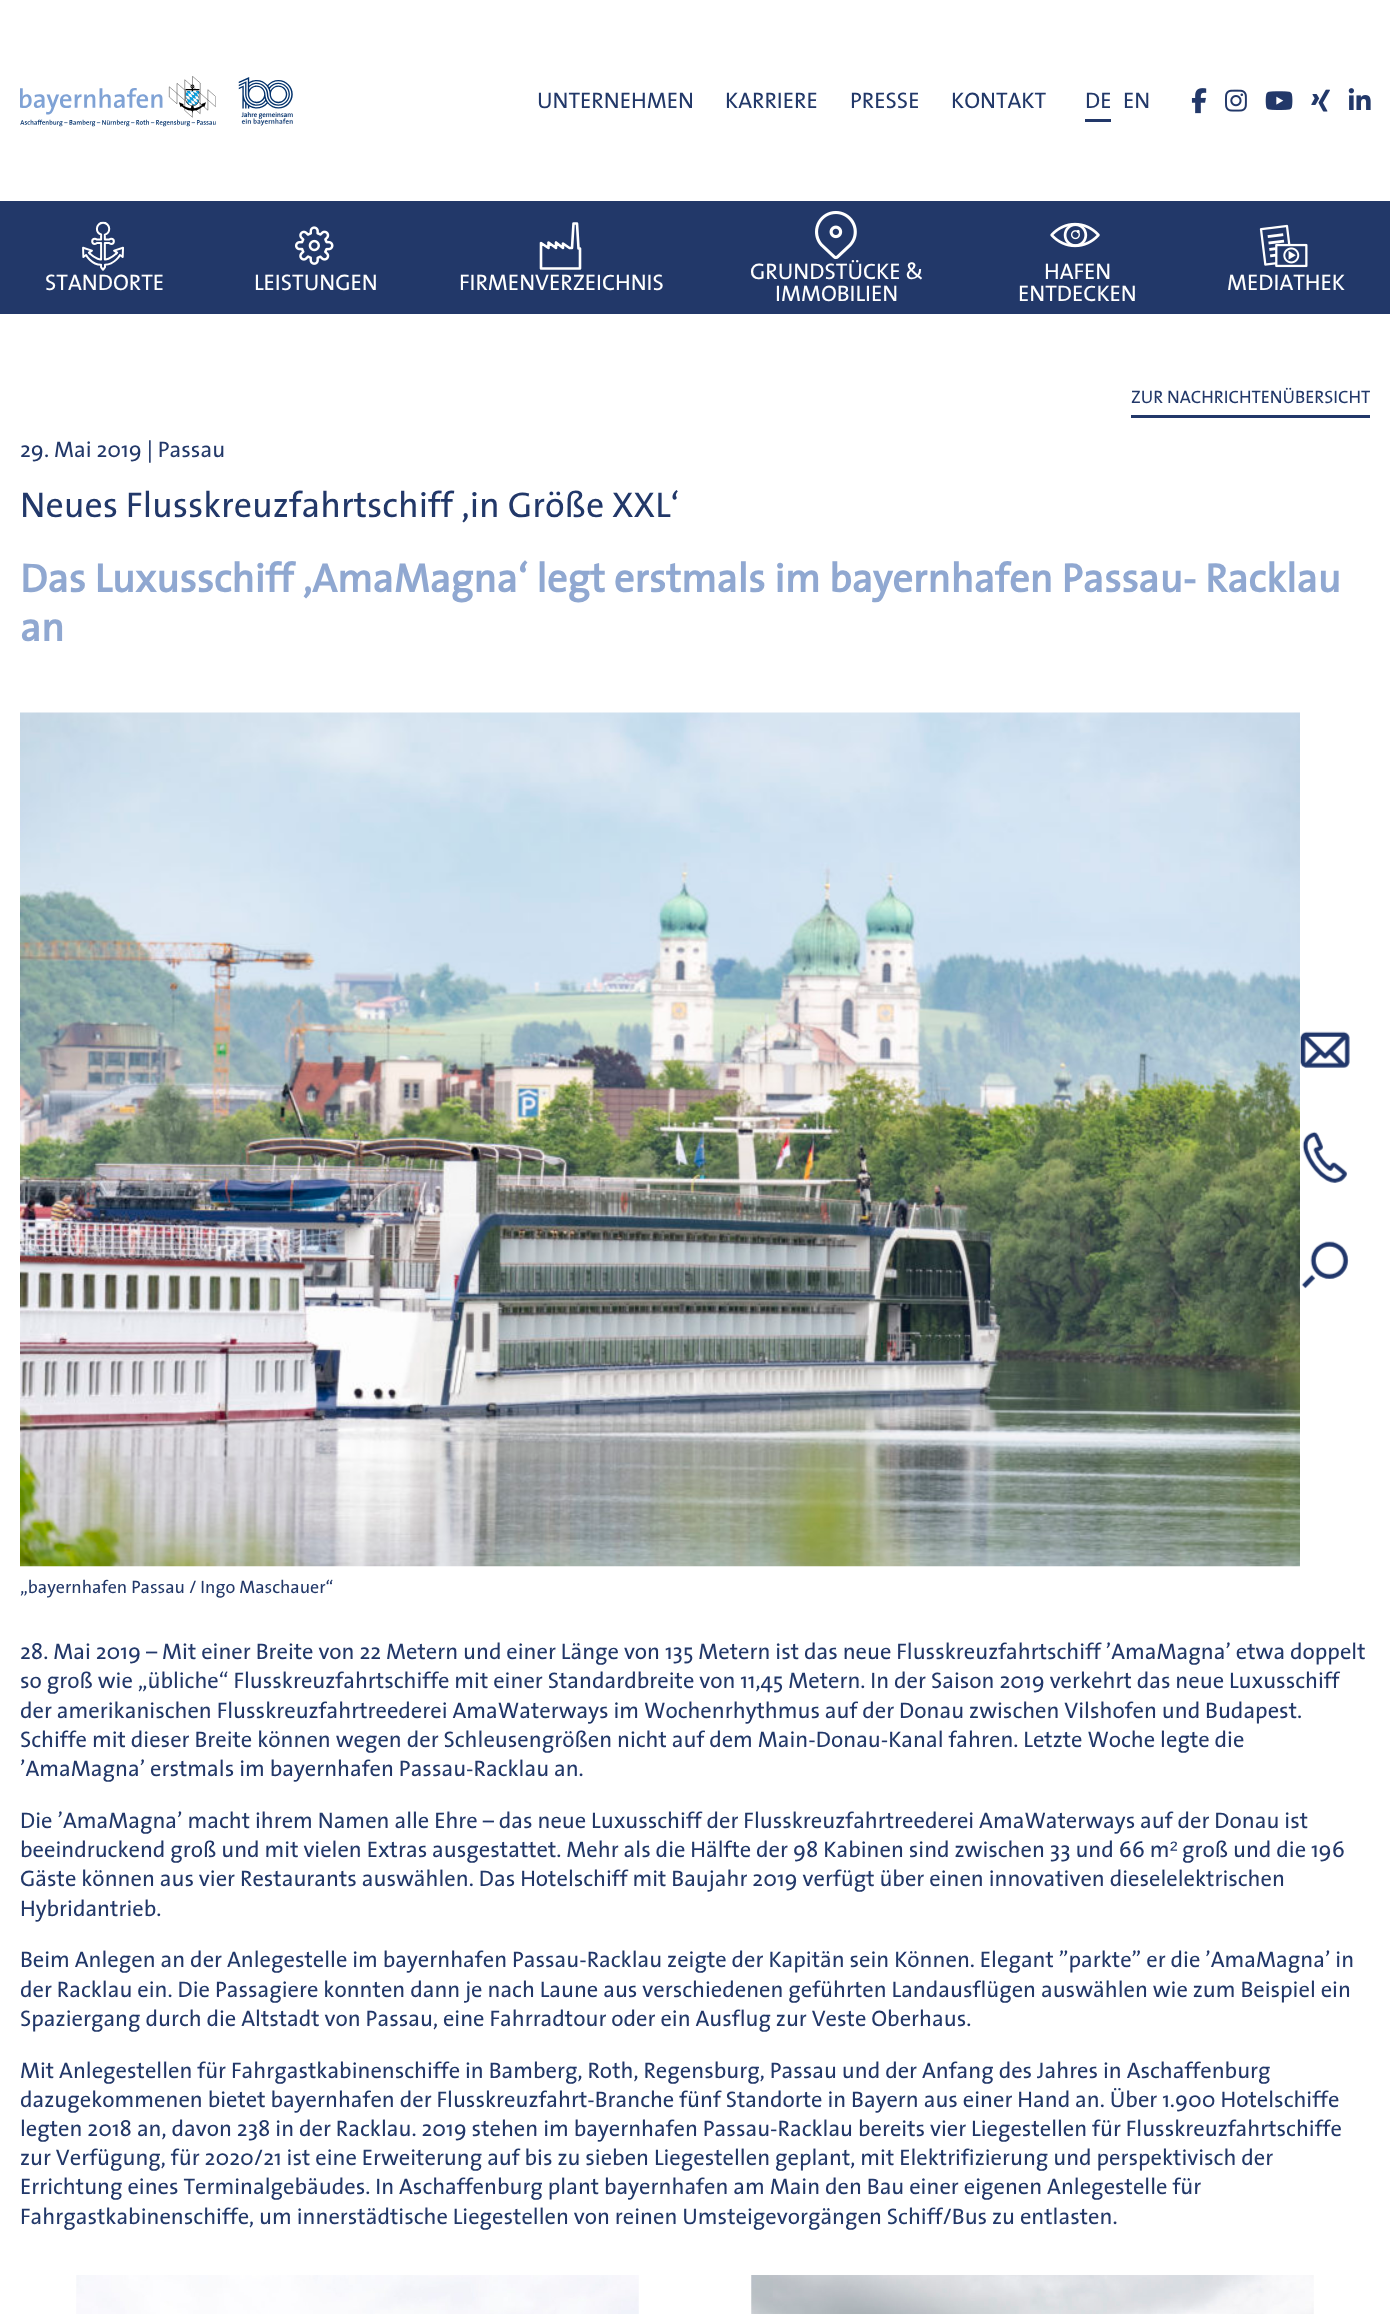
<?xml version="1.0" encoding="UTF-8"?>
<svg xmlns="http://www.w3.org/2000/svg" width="1390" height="2314">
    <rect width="100%" height="100%" fill="#FFFFFF"/>
    <image x="20" y="76" width="273" height="51" href="img_01.png"/>
    <text x="537" y="108" font-family="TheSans" font-size="22.5" fill="#223869">UNTERNEHMEN</text>
    <text x="725" y="108" font-family="TheSans" font-size="22.5" fill="#223869">KARRIERE</text>
    <text x="850" y="108" font-family="TheSans" font-size="22.5" fill="#223869">PRESSE</text>
    <text x="951" y="108" font-family="TheSans" font-size="22.5" fill="#223869">KONTAKT</text>
    <text x="1085" y="108" font-family="TheSans" font-size="22.5" fill="#223869">DE</text>
    <rect x="1085" y="119" width="26" height="3" fill="#223869"/>
    <text x="1123" y="108" font-family="TheSans" font-size="22.5" fill="#223869">EN</text>
    <image x="1191" y="88" width="16" height="26" href="img_02.png"/>
    <image x="1225" y="89" width="22" height="23" href="img_03.png"/>
    <image x="1265" y="91" width="28" height="19" href="img_04.png"/>
    <image x="1311" y="89" width="19" height="23" href="img_05.png"/>
    <image x="1348" y="88" width="23" height="22" href="img_06.png"/>
    <image x="20" y="712" width="1280" height="855" href="img_15.png"/>
    <image x="1296" y="1031" width="54" height="38" href="img_07.png"/>
    <image x="1296" y="1131" width="52" height="52" href="img_08.png"/>
    <image x="1295" y="1241" width="54" height="51" href="img_09.png"/>
    <rect x="0" y="201" width="1390" height="113" fill="#223869"/>
    <image x="82" y="221" width="42" height="50" href="img_10.png"/>
    <text x="45" y="290" font-family="TheSans" font-size="22.5" fill="#FFFFFF">STANDORTE</text>
    <image x="294" y="226" width="40" height="39" href="img_11.png"/>
    <text x="254" y="290" font-family="TheSans" font-size="22.5" fill="#FFFFFF">LEISTUNGEN</text>
    <path d="M 578.5 248.5 L 577 223.5 H 573.5 L 572 248 H 569.5 L 563 243.5 V 248 L 556 242.5 V 248 L 548.5 242.5 V 248 L 541 243 V 268.5 H 580 V 248.5 Z" fill="none" stroke="#FFFFFF" stroke-width="2.6" stroke-linejoin="round"/>
    <text x="459" y="290" font-family="TheSans" font-size="22.5" fill="#FFFFFF">FIRMENVERZEICHNIS</text>
    <image x="815" y="210" width="42" height="50" href="img_12.png"/>
    <text x="750" y="279" font-family="TheSans" font-size="22.5" fill="#FFFFFF">GRUNDSTÜCKE &amp;</text>
    <text x="775" y="301" font-family="TheSans" font-size="22.5" fill="#FFFFFF">IMMOBILIEN</text>
    <image x="1050" y="222" width="50" height="26" href="img_13.png"/>
    <text x="1044" y="279" font-family="TheSans" font-size="22.5" fill="#FFFFFF">HAFEN</text>
    <text x="1018" y="301" font-family="TheSans" font-size="22.5" fill="#FFFFFF">ENTDECKEN</text>
    <image x="1259" y="224" width="49" height="44" href="img_14.png"/>
    <text x="1227" y="290" font-family="TheSans" font-size="22.5" fill="#FFFFFF">MEDIATHEK</text>
    <text x="1131" y="403" font-family="TheSans" font-size="18" fill="#223869">ZUR NACHRICHTENÜBERSICHT</text>
    <rect x="1131" y="415" width="239" height="3" fill="#223869"/>
    <text x="20" y="457" font-family="TheSans" font-size="22.5" fill="#223869">29. Mai 2019 | Passau</text>
    <text x="20" y="517" font-family="TheSans" font-size="36" fill="#223869">Neues Flusskreuzfahrtschiff ‚in Größe XXL‘</text>
    <text font-family="TheSans" font-size="40.5" font-weight="700" fill="#90A8D1">
        <tspan x="20" y="592">Das Luxusschiff ‚AmaMagna‘ legt erstmals im bayernhafen Passau- Racklau</tspan>
        <tspan x="20" y="641">an</tspan>
    </text>
    <text x="20" y="1593" font-family="TheSans" font-size="18" fill="#223869">„bayernhafen Passau / Ingo Maschauer“</text>
    <text font-family="TheSans" font-size="22.5" fill="#223869">
        <tspan x="20" y="1659">28. Mai 2019 – Mit einer Breite von 22 Metern und einer Länge von 135 Metern ist das neue Flusskreuzfahrtschiff ’AmaMagna’ etwa doppelt</tspan>
        <tspan x="20" y="1688">so groß wie „übliche“ Flusskreuzfahrtschiffe mit einer Standardbreite von 11,45 Metern. In der Saison 2019 verkehrt das neue Luxusschiff</tspan>
        <tspan x="20" y="1718">der amerikanischen Flusskreuzfahrtreederei AmaWaterways im Wochenrhythmus auf der Donau zwischen Vilshofen und Budapest.</tspan>
        <tspan x="20" y="1747">Schiffe mit dieser Breite können wegen der Schleusengrößen nicht auf dem Main-Donau-Kanal fahren. Letzte Woche legte die</tspan>
        <tspan x="20" y="1776">’AmaMagna’ erstmals im bayernhafen Passau-Racklau an.</tspan>
    </text>
    <text font-family="TheSans" font-size="22.5" fill="#223869">
        <tspan x="20" y="1828">Die ’AmaMagna’ macht ihrem Namen alle Ehre – das neue Luxusschiff der Flusskreuzfahrtreederei AmaWaterways auf der Donau ist</tspan>
        <tspan x="20" y="1857">beeindruckend groß und mit vielen Extras ausgestattet. Mehr als die Hälfte der 98 Kabinen sind zwischen 33 und 66 m</tspan>
    </text>
    <text x="1170" y="1857" font-family="Liberation Sans" font-size="22.5" fill="#223869">²</text>
    <text x="1182" y="1857" font-family="TheSans" font-size="22.5" fill="#223869">groß und die 196</text>
    <text font-family="TheSans" font-size="22.5" fill="#223869">
        <tspan x="20" y="1886">Gäste können aus vier Restaurants auswählen. Das Hotelschiff mit Baujahr 2019 verfügt über einen innovativen dieselelektrischen</tspan>
        <tspan x="20" y="1916">Hybridantrieb.</tspan>
    </text>
    <text font-family="TheSans" font-size="22.5" fill="#223869">
        <tspan x="20" y="1967">Beim Anlegen an der Anlegestelle im bayernhafen Passau-Racklau zeigte der Kapitän sein Können. Elegant ”parkte” er die ’AmaMagna’ in</tspan>
        <tspan x="20" y="1997">der Racklau ein. Die Passagiere konnten dann je nach Laune aus verschiedenen geführten Landausflügen auswählen wie zum Beispiel ein</tspan>
        <tspan x="20" y="2026">Spaziergang durch die Altstadt von Passau, eine Fahrradtour oder ein Ausflug zur Veste Oberhaus.</tspan>
    </text>
    <text font-family="TheSans" font-size="22.5" fill="#223869">
        <tspan x="20" y="2078">Mit Anlegestellen für Fahrgastkabinenschiffe in Bamberg, Roth, Regensburg, Passau und der Anfang des Jahres in Aschaffenburg</tspan>
        <tspan x="20" y="2107">dazugekommenen bietet bayernhafen der Flusskreuzfahrt-Branche fünf Standorte in Bayern aus einer Hand an. Über 1.900 Hotelschiffe</tspan>
        <tspan x="20" y="2136">legten 2018 an, davon 238 in der Racklau. 2019 stehen im bayernhafen Passau-Racklau bereits vier Liegestellen für Flusskreuzfahrtschiffe</tspan>
        <tspan x="20" y="2165">zur Verfügung, für 2020/21 ist eine Erweiterung auf bis zu sieben Liegestellen geplant, mit Elektrifizierung und perspektivisch der</tspan>
        <tspan x="20" y="2194">Errichtung eines Terminalgebäudes. In Aschaffenburg plant bayernhafen am Main den Bau einer eigenen Anlegestelle für</tspan>
        <tspan x="20" y="2224">Fahrgastkabinenschiffe, um innerstädtische Liegestellen von reinen Umsteigevorgängen Schiff/Bus zu entlasten.</tspan>
    </text>
    <image x="76" y="2275" width="563" height="39" href="img_16.png"/>
    <image x="751" y="2275" width="563" height="39" href="img_17.png"/>
</svg>
